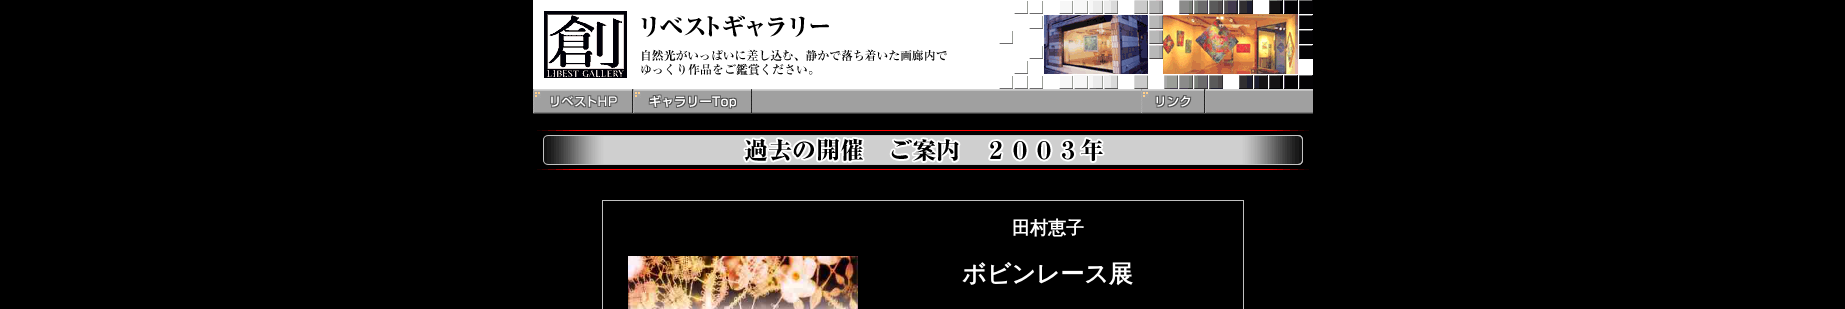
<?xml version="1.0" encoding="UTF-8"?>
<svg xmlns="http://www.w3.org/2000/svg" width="1845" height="309">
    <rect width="100%" height="100%" fill="#000000"/>
    <rect x="533" y="0" width="466" height="89" fill="#FFFFFF"/>
    <image x="544" y="11" width="83" height="67" href="img_01.png"/>
    <image x="641" y="15" width="306" height="61" href="img_02.png"/>
    <image x="999" y="0" width="314" height="89" href="img_03.png"/>
    <image x="752" y="89" width="561" height="25" href="img_04.png"/>
    <image x="533" y="89" width="100" height="25" href="img_05.png"/>
    <image x="633" y="89" width="119" height="25" href="img_06.png"/>
    <image x="1141" y="89" width="65" height="25" href="img_07.png"/>
    <image x="537" y="130" width="772" height="40" href="img_08.png"/>
    <rect x="602" y="200" width="642" height="109" fill="#C0C0C0"/>
    <rect x="603" y="201" width="640" height="108" fill="#000000"/>
    <image x="628" y="256" width="230" height="53" href="img_09.png"/>
    <text x="1012" y="234" font-family="WenQuanYi Zen Hei" font-size="18" font-weight="700" fill="#FFFFFF">田村恵子</text>
    <text x="962" y="282" font-family="WenQuanYi Zen Hei" font-size="24" font-weight="700" fill="#FFFFFF">ボビンレース展</text>
</svg>
